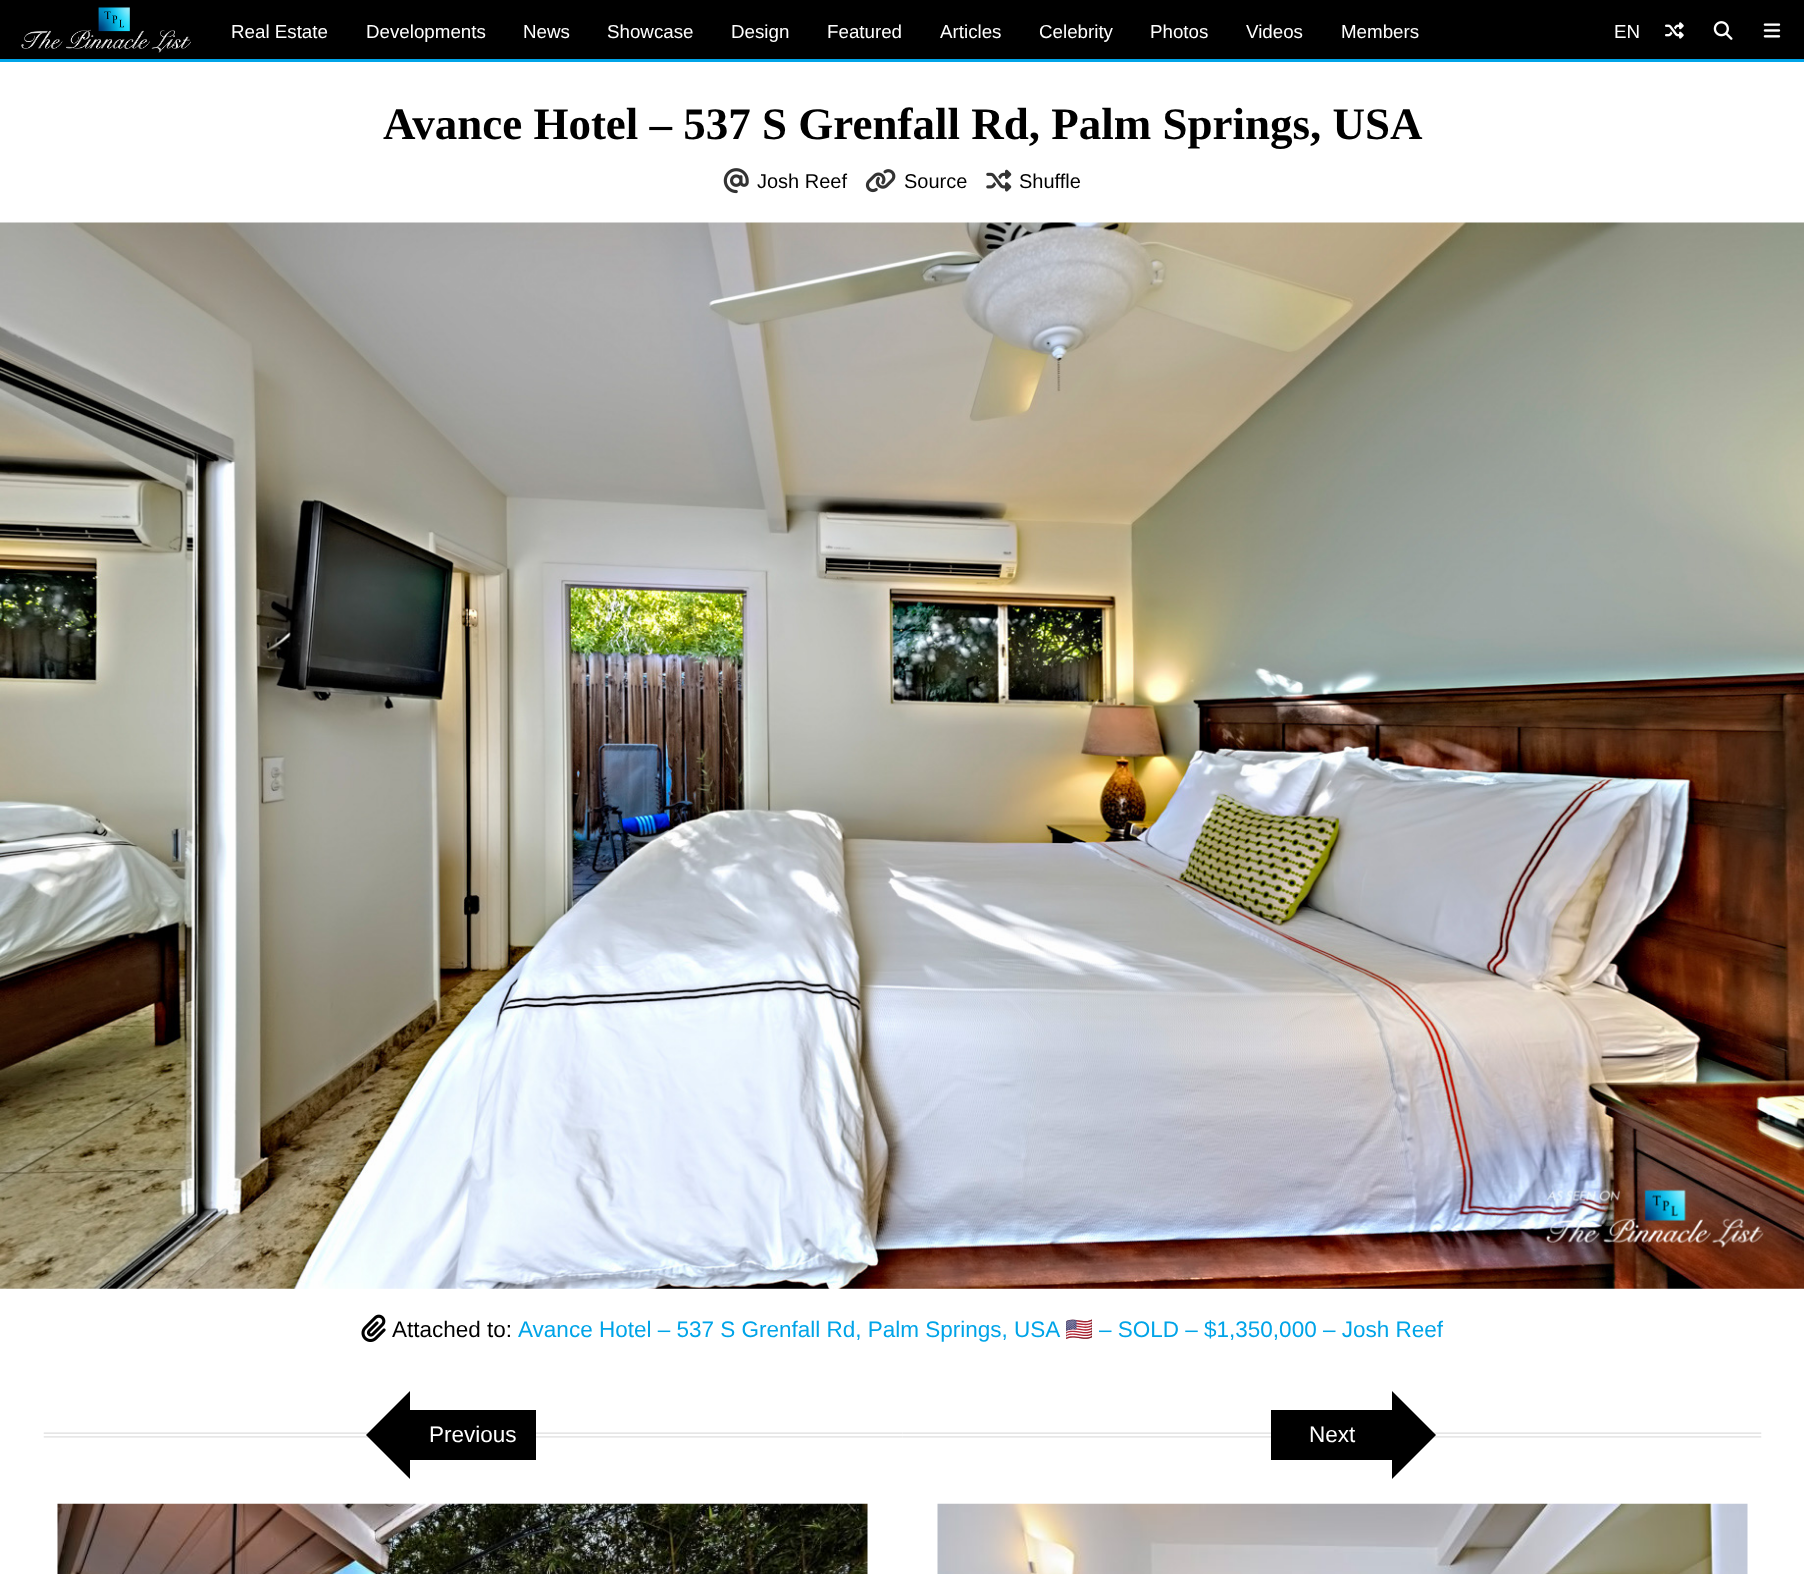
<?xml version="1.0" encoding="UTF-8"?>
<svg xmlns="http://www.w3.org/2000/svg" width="1804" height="1574">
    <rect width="100%" height="100%" fill="#000000"/>
    <rect x="0" y="62" width="1804" height="1512" fill="#FFFFFF"/>
    <rect x="0" y="59" width="1804" height="3" fill="#00A4E8"/>
    <image x="21" y="7" width="170" height="46" href="img_01.png"/>
    <text x="231" y="38" font-family="Liberation Sans" font-size="18.75" fill="#FFFFFF">Real Estate</text>
    <text x="366" y="38" font-family="Liberation Sans" font-size="18.75" fill="#FFFFFF">Developments</text>
    <text x="523" y="38" font-family="Liberation Sans" font-size="18.75" fill="#FFFFFF">News</text>
    <text x="607" y="38" font-family="Liberation Sans" font-size="18.75" fill="#FFFFFF">Showcase</text>
    <text x="731" y="38" font-family="Liberation Sans" font-size="18.75" fill="#FFFFFF">Design</text>
    <text x="827" y="38" font-family="Liberation Sans" font-size="18.75" fill="#FFFFFF">Featured</text>
    <text x="940" y="38" font-family="Liberation Sans" font-size="18.75" fill="#FFFFFF">Articles</text>
    <text x="1039" y="38" font-family="Liberation Sans" font-size="18.75" fill="#FFFFFF">Celebrity</text>
    <text x="1150" y="38" font-family="Liberation Sans" font-size="18.75" fill="#FFFFFF">Photos</text>
    <text x="1246" y="38" font-family="Liberation Sans" font-size="18.75" fill="#FFFFFF">Videos</text>
    <text x="1341" y="38" font-family="Liberation Sans" font-size="18.75" fill="#FFFFFF">Members</text>
    <text x="1614" y="38" font-family="Liberation Sans" font-size="18.75" fill="#FFFFFF">EN</text>
    <image x="1665" y="22" width="19" height="17" href="img_02.png"/>
    <image x="1713" y="21" width="20" height="19" href="img_03.png"/>
    <image x="1763" y="23" width="18" height="15" href="img_04.png"/>
    <text x="383" y="139" font-family="Liberation Serif" font-size="45" font-weight="700" fill="#000000">Avance Hotel – 537 S Grenfall Rd, Palm Springs, USA</text>
    <image x="723" y="168" width="26" height="26" href="img_05.png"/>
    <text x="757" y="188" font-family="Liberation Sans" font-size="20" fill="#000000">Josh Reef</text>
    <image x="865" y="169" width="31" height="24" href="img_06.png"/>
    <text x="904" y="188" font-family="Liberation Sans" font-size="20" fill="#000000">Source</text>
    <image x="986" y="169" width="26" height="23" href="img_07.png"/>
    <text x="1019" y="188" font-family="Liberation Sans" font-size="20" fill="#000000">Shuffle</text>
    <image x="0" y="222" width="1804" height="1067" href="img_08.png"/>
    <image x="361" y="1314" width="25" height="28" href="img_09.png"/>
    <text x="392" y="1337" font-family="Liberation Sans" font-size="22.5" fill="#000000">Attached to:</text>
    <text x="518" y="1337" font-family="Liberation Sans" font-size="22.5" fill="#00A4E8">Avance Hotel – 537 S Grenfall Rd, Palm Springs, USA</text>
    <text x="1065" y="1337" font-family="Noto Color Emoji" font-size="22.5" fill="#00A4E8">🇺🇸</text>
    <text x="1099" y="1337" font-family="Liberation Sans" font-size="22.5" fill="#00A4E8">– SOLD – $1,350,000 – Josh Reef</text>
    <image x="43" y="1432" width="860" height="6" href="img_10.png"/>
    <rect x="410" y="1410" width="126" height="50" fill="#000000"/>
    <path d="M 410 1391 V 1479 L 366 1435 Z" fill="#000000"/>
    <text x="429" y="1442" font-family="Liberation Sans" font-size="22.5" fill="#FFFFFF">Previous</text>
    <image x="57" y="1503" width="811" height="71" href="img_11.png"/>
    <image x="902" y="1432" width="860" height="6" href="img_12.png"/>
    <rect x="1271" y="1410" width="121" height="50" fill="#000000"/>
    <text x="1309" y="1442" font-family="Liberation Sans" font-size="22.5" fill="#FFFFFF">Next</text>
    <path d="M 1392 1479 V 1391 L 1436 1435 Z" fill="#000000"/>
    <image x="937" y="1503" width="811" height="71" href="img_13.png"/>
</svg>
